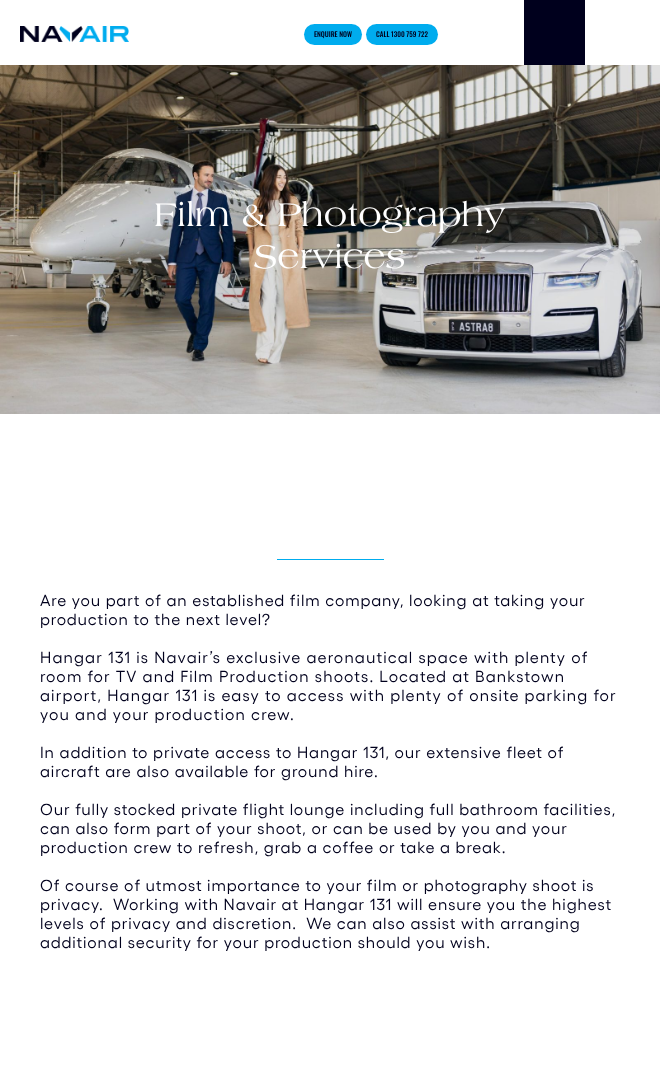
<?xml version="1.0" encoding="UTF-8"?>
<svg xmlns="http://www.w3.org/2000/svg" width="660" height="1075">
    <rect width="100%" height="100%" fill="#FFFFFF"/>
    <image x="20" y="26" width="109" height="16" href="img_01.png"/>
    <rect x="304" y="24" width="58" height="21" rx="10.5" fill="#00ACEE"/>
    <text x="314" y="37" font-family="Oswald" font-size="7" font-weight="500" fill="#00001D">ENQUIRE NOW</text>
    <rect x="366" y="24" width="72" height="21" rx="10.5" fill="#00ACEE"/>
    <text x="376" y="37" font-family="Oswald" font-size="7" font-weight="500" fill="#00001D">CALL 1300 759 722</text>
    <rect x="524" y="0" width="61" height="65" fill="#00001D"/>
    <image x="0" y="65" width="660" height="349" href="img_02.png"/>
    <text x="154" y="226" font-family="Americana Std" font-size="35" fill="#FFFFFF">Film &amp; Photography</text>
    <text x="254" y="268" font-family="Americana Std" font-size="35" fill="#FFFFFF">Services</text>
    <rect x="277" y="559" width="107" height="1" fill="#00ACEE"/>
    <text font-family="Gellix" font-size="16" letter-spacing="0.88" fill="#00001D">
        <tspan x="40" y="606">Are you part of an established film company, looking at taking your</tspan>
        <tspan x="40" y="625">production to the next level?</tspan>
    </text>
    <text font-family="Gellix" font-size="16" letter-spacing="1.15" fill="#00001D">
        <tspan x="40" y="663">Hangar 131 is Navair’s exclusive aeronautical space with plenty of</tspan>
        <tspan x="40" y="682">room for TV and Film Production shoots. Located at Bankstown</tspan>
        <tspan x="40" y="701">airport, Hangar 131 is easy to access with plenty of onsite parking for</tspan>
        <tspan x="40" y="720">you and your production crew.</tspan>
    </text>
    <text font-family="Gellix" font-size="16" letter-spacing="0.88" fill="#00001D">
        <tspan x="40" y="758">In addition to private access to Hangar 131, our extensive fleet of</tspan>
        <tspan x="40" y="777">aircraft are also available for ground hire.</tspan>
    </text>
    <text font-family="Gellix" font-size="16" letter-spacing="0.88" fill="#00001D">
        <tspan x="40" y="815">Our fully stocked private flight lounge including full bathroom facilities,</tspan>
        <tspan x="40" y="834">can also form part of your shoot, or can be used by you and your</tspan>
        <tspan x="40" y="853">production crew to refresh, grab a coffee or take a break.</tspan>
    </text>
    <text font-family="Gellix" font-size="16" letter-spacing="0.88" fill="#00001D" xml:space="preserve"><tspan x="40" y="891">Of course of utmost importance to your film or photography shoot is</tspan><tspan x="40" y="910">privacy.  Working with Navair at Hangar 131 will ensure you the highest</tspan><tspan x="40" y="929">levels of privacy and discretion.  We can also assist with arranging</tspan><tspan x="40" y="948">additional security for your production should you wish.</tspan></text>
</svg>
